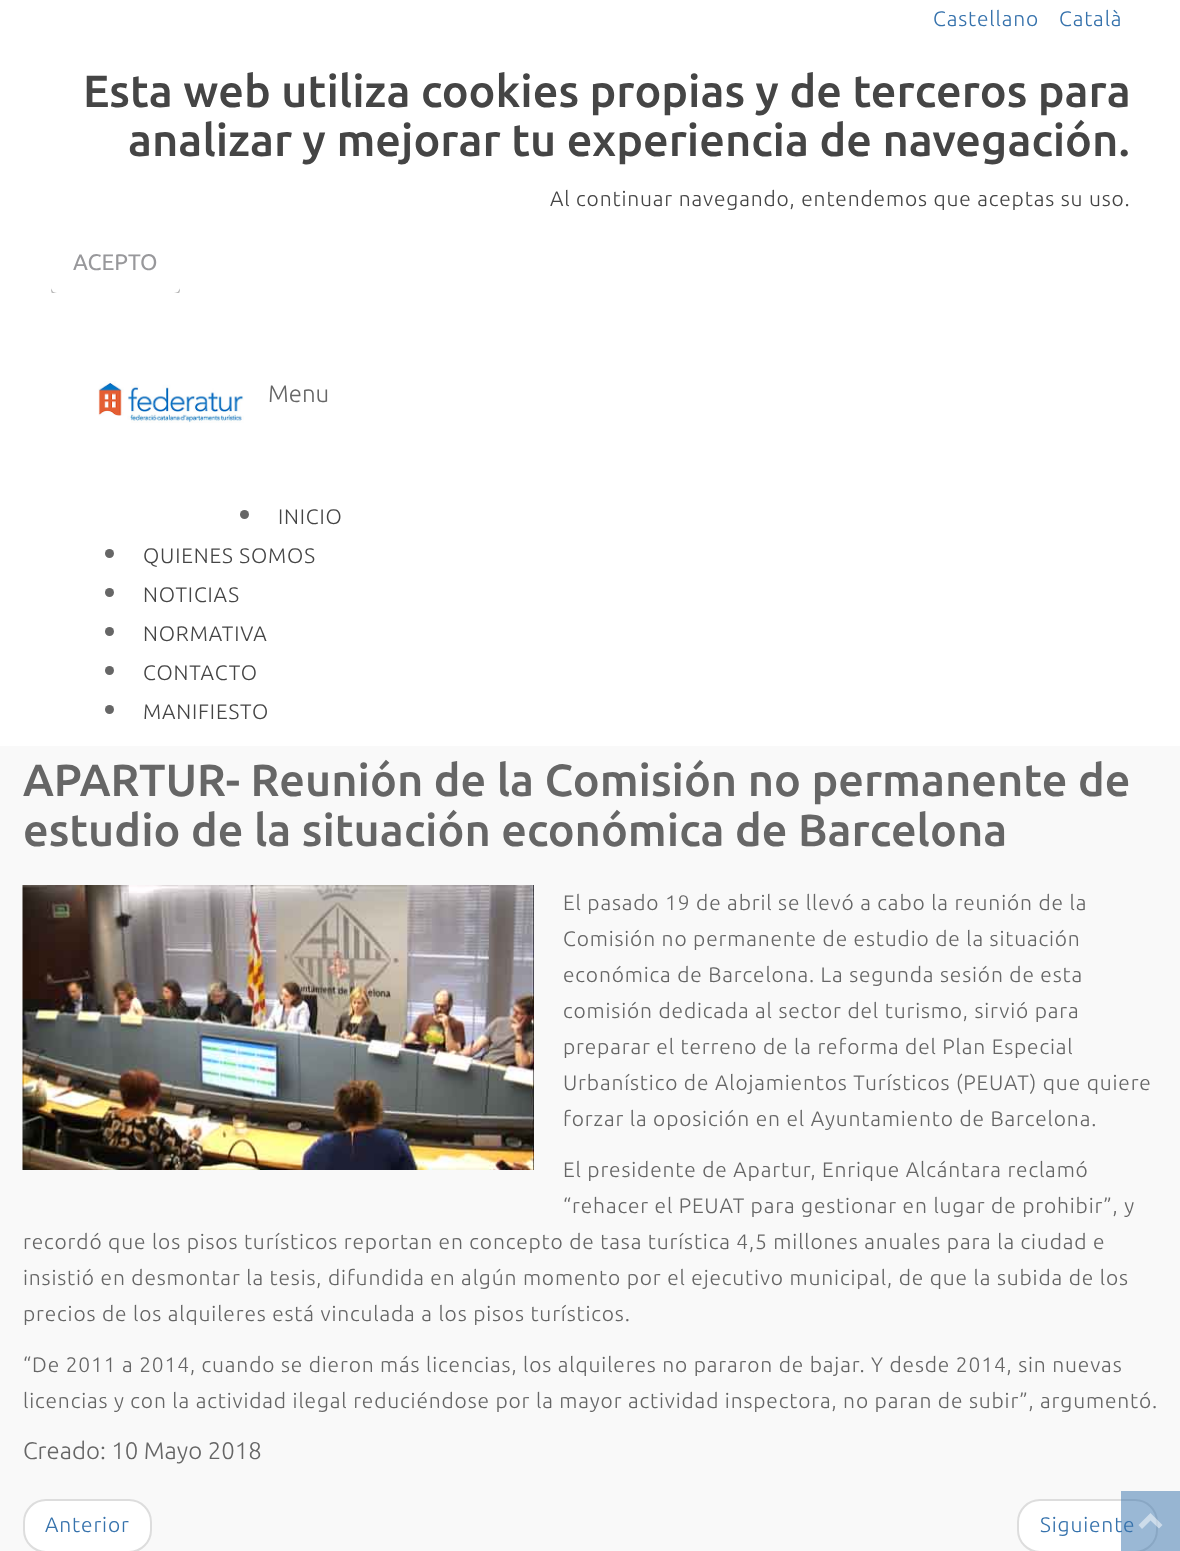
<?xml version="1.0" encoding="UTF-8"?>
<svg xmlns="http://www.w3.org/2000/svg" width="1180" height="1551">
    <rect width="100%" height="100%" fill="#F9F9F9"/>
    <rect x="0" y="0" width="1180" height="293" fill="#FFFFFF"/>
    <text x="933" y="26" font-family="Ubuntu" font-size="21" font-weight="300" letter-spacing="0.84" fill="#3672AC">Castellano</text>
    <text x="1059" y="26" font-family="Ubuntu" font-size="21" font-weight="300" letter-spacing="0.84" fill="#3672AC">Català</text>
    <text x="83" y="107" font-family="Ubuntu" font-size="45" font-weight="500" fill="#454545">Esta web utiliza cookies propias y de terceros para</text>
    <text x="128" y="156" font-family="Ubuntu" font-size="45" font-weight="500" fill="#454545">analizar y mejorar tu experiencia de navegación.</text>
    <text x="550" y="206" font-family="Ubuntu" font-size="21" font-weight="300" letter-spacing="0.84" fill="#454545">Al continuar navegando, entendemos que aceptas su uso.</text>
    <path d="M 51 286 V 290 C 51 293 54 296 57 296 H 174 C 177 296 180 293 180 290 V 286 C 180 290 177 292 174 292 H 57 C 54 292 51 290 51 286 Z" fill="#BBBBBB"/>
    <rect x="51" y="231" width="129" height="62" rx="6" fill="#FFFFFF"/>
    <text x="73" y="270" font-family="Ubuntu" font-size="22.5" fill="#98989B">ACEPTO</text>
    <rect x="0" y="293" width="1180" height="453" fill="#FFFFFF"/>
    <image x="98" y="381" width="146" height="42" href="img_01.png"/>
    <text x="268" y="402" font-family="Ubuntu" font-size="24" font-weight="300" fill="#666666">Menu</text>
    <circle cx="244.5" cy="514.5" r="4.5" fill="#666666"/>
    <text x="278" y="524" font-family="Ubuntu" font-size="21" font-weight="300" letter-spacing="0.84" fill="#454545">INICIO</text>
    <circle cx="109.5" cy="553.5" r="4.5" fill="#666666"/>
    <text x="143" y="563" font-family="Ubuntu" font-size="21" font-weight="300" letter-spacing="0.84" fill="#454545">QUIENES SOMOS</text>
    <circle cx="109.5" cy="592.5" r="4.5" fill="#666666"/>
    <text x="143" y="602" font-family="Ubuntu" font-size="21" font-weight="300" letter-spacing="0.84" fill="#454545">NOTICIAS</text>
    <circle cx="109.5" cy="631.5" r="4.5" fill="#666666"/>
    <text x="143" y="641" font-family="Ubuntu" font-size="21" font-weight="300" letter-spacing="0.84" fill="#454545">NORMATIVA</text>
    <circle cx="109.5" cy="670.5" r="4.5" fill="#666666"/>
    <text x="143" y="680" font-family="Ubuntu" font-size="21" font-weight="300" letter-spacing="0.84" fill="#454545">CONTACTO</text>
    <circle cx="109.5" cy="709.5" r="4.5" fill="#666666"/>
    <text x="143" y="719" font-family="Ubuntu" font-size="21" font-weight="300" letter-spacing="0.84" fill="#454545">MANIFIESTO</text>
    <text font-family="Ubuntu" font-size="45" font-weight="500" fill="#666666">
        <tspan x="23" y="796">APARTUR- Reunión de la Comisión no permanente de</tspan>
        <tspan x="23" y="846">estudio de la situación económica de Barcelona</tspan>
    </text>
    <image x="22" y="885" width="512" height="285" href="img_02.png"/>
    <text font-family="Ubuntu" font-size="21" font-weight="300" letter-spacing="0.84" fill="#666666">
        <tspan x="563" y="910">El pasado 19 de abril se llevó a cabo la reunión de la</tspan>
        <tspan x="563" y="946">Comisión no permanente de estudio de la situación</tspan>
        <tspan x="563" y="982">económica de Barcelona. La segunda sesión de esta</tspan>
        <tspan x="563" y="1018">comisión dedicada al sector del turismo, sirvió para</tspan>
        <tspan x="563" y="1054">preparar el terreno de la reforma del Plan Especial</tspan>
        <tspan x="563" y="1090">Urbanístico de Alojamientos Turísticos (PEUAT) que quiere</tspan>
        <tspan x="563" y="1126">forzar la oposición en el Ayuntamiento de Barcelona.</tspan>
    </text>
    <text font-family="Ubuntu" font-size="21" font-weight="300" letter-spacing="0.84" fill="#666666">
        <tspan x="563" y="1177">El presidente de Apartur, Enrique Alcántara reclamó</tspan>
        <tspan x="563" y="1213">“rehacer el PEUAT para gestionar en lugar de prohibir”, y</tspan>
    </text>
    <text font-family="Ubuntu" font-size="21" font-weight="300" letter-spacing="0.84" fill="#666666">
        <tspan x="23" y="1249">recordó que los pisos turísticos reportan en concepto de tasa turística 4,5 millones anuales para la ciudad e</tspan>
        <tspan x="23" y="1285">insistió en desmontar la tesis, difundida en algún momento por el ejecutivo municipal, de que la subida de los</tspan>
        <tspan x="23" y="1321">precios de los alquileres está vinculada a los pisos turísticos.</tspan>
    </text>
    <text font-family="Ubuntu" font-size="21" font-weight="300" letter-spacing="0.84" fill="#666666">
        <tspan x="23" y="1372">“De 2011 a 2014, cuando se dieron más licencias, los alquileres no pararon de bajar. Y desde 2014, sin nuevas</tspan>
        <tspan x="23" y="1408">licencias y con la actividad ilegal reduciéndose por la mayor actividad inspectora, no paran de subir”, argumentó.</tspan>
    </text>
    <text x="23" y="1459" font-family="Ubuntu" font-size="24" font-weight="300" fill="#666666">Creado: 10 Mayo 2018</text>
    <rect x="24" y="1500" width="127" height="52" rx="22" fill="#FFFFFF" stroke="#DDDDDD" stroke-width="2"/>
    <text x="45" y="1532" font-family="Ubuntu" font-size="21" font-weight="300" letter-spacing="0.84" fill="#3672AC">Anterior</text>
    <rect x="1018" y="1500" width="139" height="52" rx="22" fill="#FFFFFF" stroke="#DDDDDD" stroke-width="2"/>
    <text x="1040" y="1532" font-family="Ubuntu" font-size="21" font-weight="300" letter-spacing="0.84" fill="#3672AC">Siguiente</text>
    <rect x="1121" y="1491" width="59" height="60" fill="#3672AC" fill-opacity="0.5"/>
    <path d="M 1150.5 1513 L 1162.5 1525 L 1159 1528.5 L 1150.5 1520.5 L 1142 1529 L 1138.5 1525 Z" fill="#FFFFFF" fill-opacity="0.5"/>
</svg>
